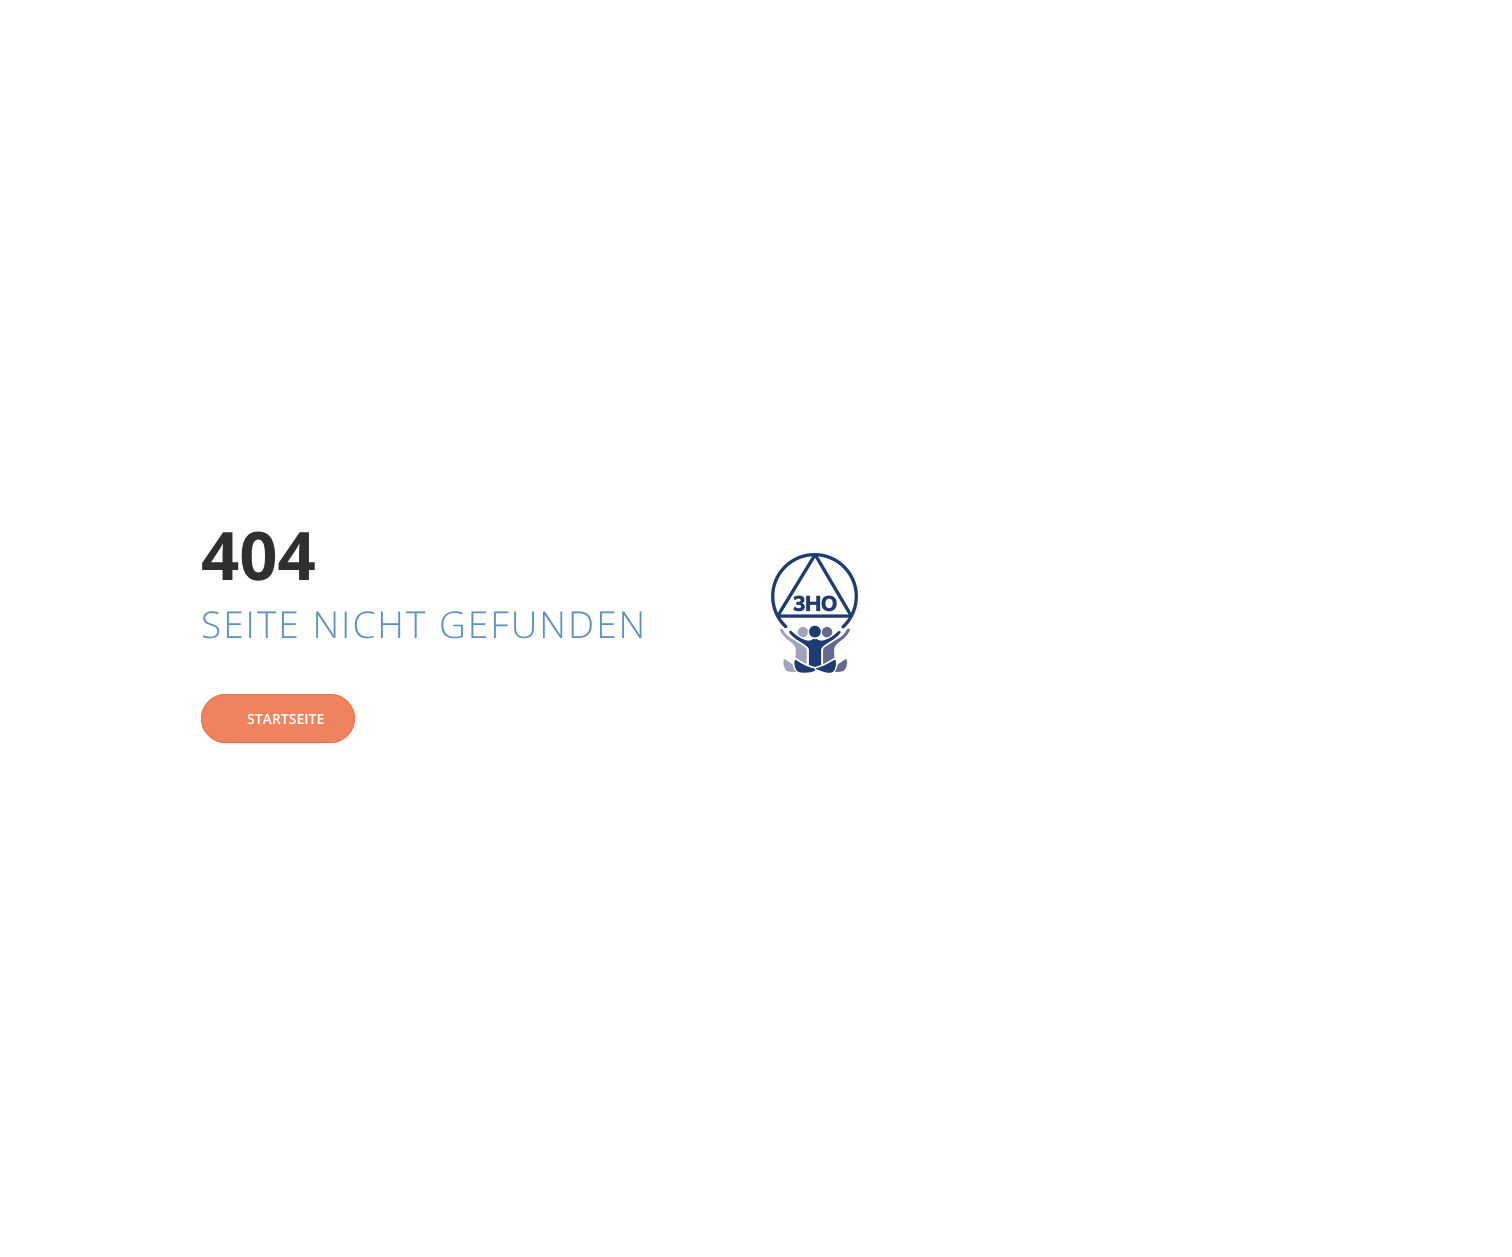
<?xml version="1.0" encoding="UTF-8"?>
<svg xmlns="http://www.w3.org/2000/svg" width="1512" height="1257">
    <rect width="100%" height="100%" fill="#FFFFFF"/>
    <text x="201" y="580" font-family="Open Sans" font-size="67" font-weight="700" fill="#2F2F30">404</text>
    <text x="201" y="638" font-family="Open Sans" font-size="37" font-weight="300" letter-spacing="2" fill="#5B90C2">SEITE NICHT GEFUNDEN</text>
    <rect x="201" y="694" width="154" height="49" rx="24.5" fill="#F0835F"/>
    <rect x="201.5" y="694.5" width="153" height="48" rx="24" fill="none" stroke="#EC6437" stroke-opacity="0.8"/>
    <text x="247" y="724" font-family="Open Sans" font-size="14" font-weight="600" fill="#FFFFFF">STARTSEITE</text>
    <image x="771" y="553" width="87" height="120" href="img_01.png"/>
</svg>
